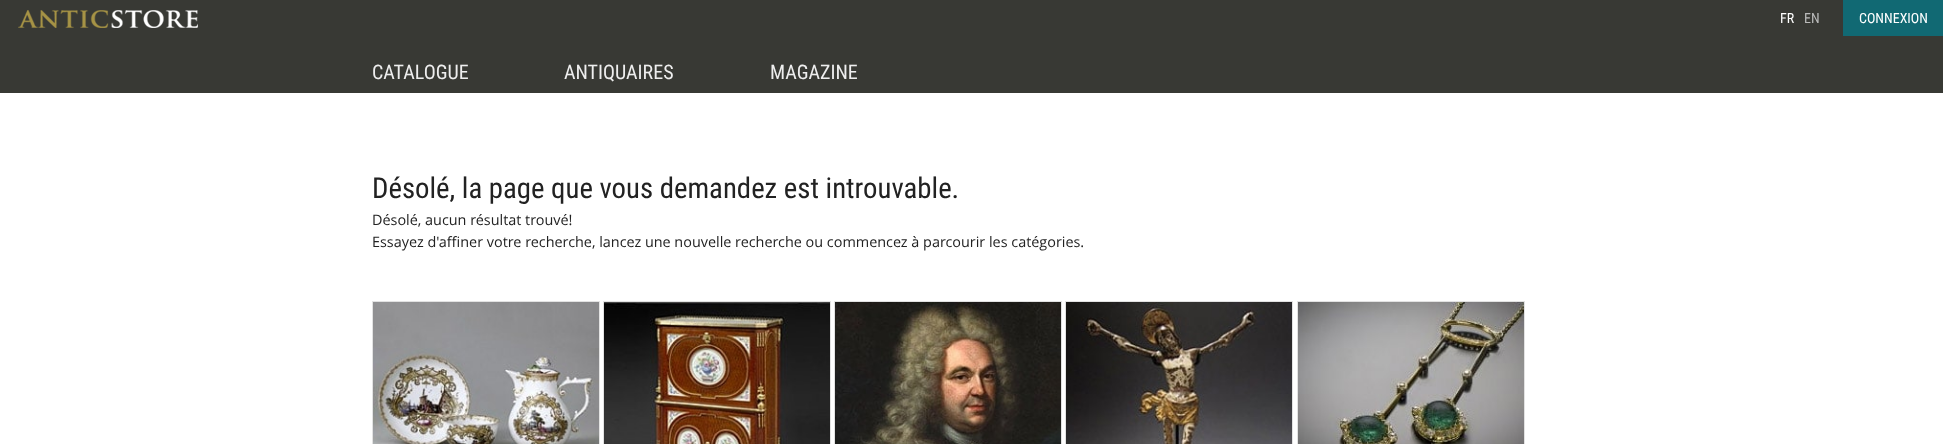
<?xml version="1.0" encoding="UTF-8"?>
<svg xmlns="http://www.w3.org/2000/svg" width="1943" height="444">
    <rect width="100%" height="100%" fill="#FFFFFF"/>
    <rect x="0" y="0" width="1943" height="93" fill="#383934"/>
    <image x="18" y="10" width="180" height="18" href="img_01.png"/>
    <text x="1780" y="23" font-family="Roboto Condensed" font-size="14" fill="#FFFFFF">FR</text>
    <text x="1804" y="23" font-family="Roboto Condensed" font-size="14" fill="#BBBBBB">EN</text>
    <rect x="1843" y="0" width="100" height="36" fill="#116973"/>
    <text x="1859" y="23" font-family="Roboto Condensed" font-size="14" fill="#FFFFFF">CONNEXION</text>
    <text x="372" y="79" font-family="Roboto Condensed" font-size="20" fill="#EEEEEE">CATALOGUE</text>
    <text x="564" y="79" font-family="Roboto Condensed" font-size="20" fill="#EEEEEE">ANTIQUAIRES</text>
    <text x="770" y="79" font-family="Roboto Condensed" font-size="20" fill="#EEEEEE">MAGAZINE</text>
    <text x="372" y="198" font-family="Roboto Condensed" font-size="28.8" fill="#222222">Désolé, la page que vous demandez est introuvable.</text>
    <text font-family="Open Sans" font-size="14.4" fill="#222222">
        <tspan x="372" y="225">Désolé, aucun résultat trouvé!</tspan>
        <tspan x="372" y="247">Essayez d'affiner votre recherche, lancez une nouvelle recherche ou commencez à parcourir les catégories.</tspan>
    </text>
    <rect x="372.5" y="301.5" width="227" height="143" fill="none" stroke="#E2E2E2"/>
    <image x="373" y="302" width="226" height="142" href="img_02.png"/>
    <rect x="603.5" y="301.5" width="227" height="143" fill="none" stroke="#E2E2E2"/>
    <image x="604" y="302" width="226" height="142" href="img_03.png"/>
    <rect x="834.5" y="301.5" width="227" height="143" fill="none" stroke="#E2E2E2"/>
    <image x="835" y="302" width="226" height="142" href="img_04.png"/>
    <rect x="1065.5" y="301.5" width="227" height="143" fill="none" stroke="#E2E2E2"/>
    <image x="1066" y="302" width="226" height="142" href="img_05.png"/>
    <rect x="1297.5" y="301.5" width="227" height="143" fill="none" stroke="#E2E2E2"/>
    <image x="1298" y="302" width="226" height="142" href="img_06.png"/>
</svg>
